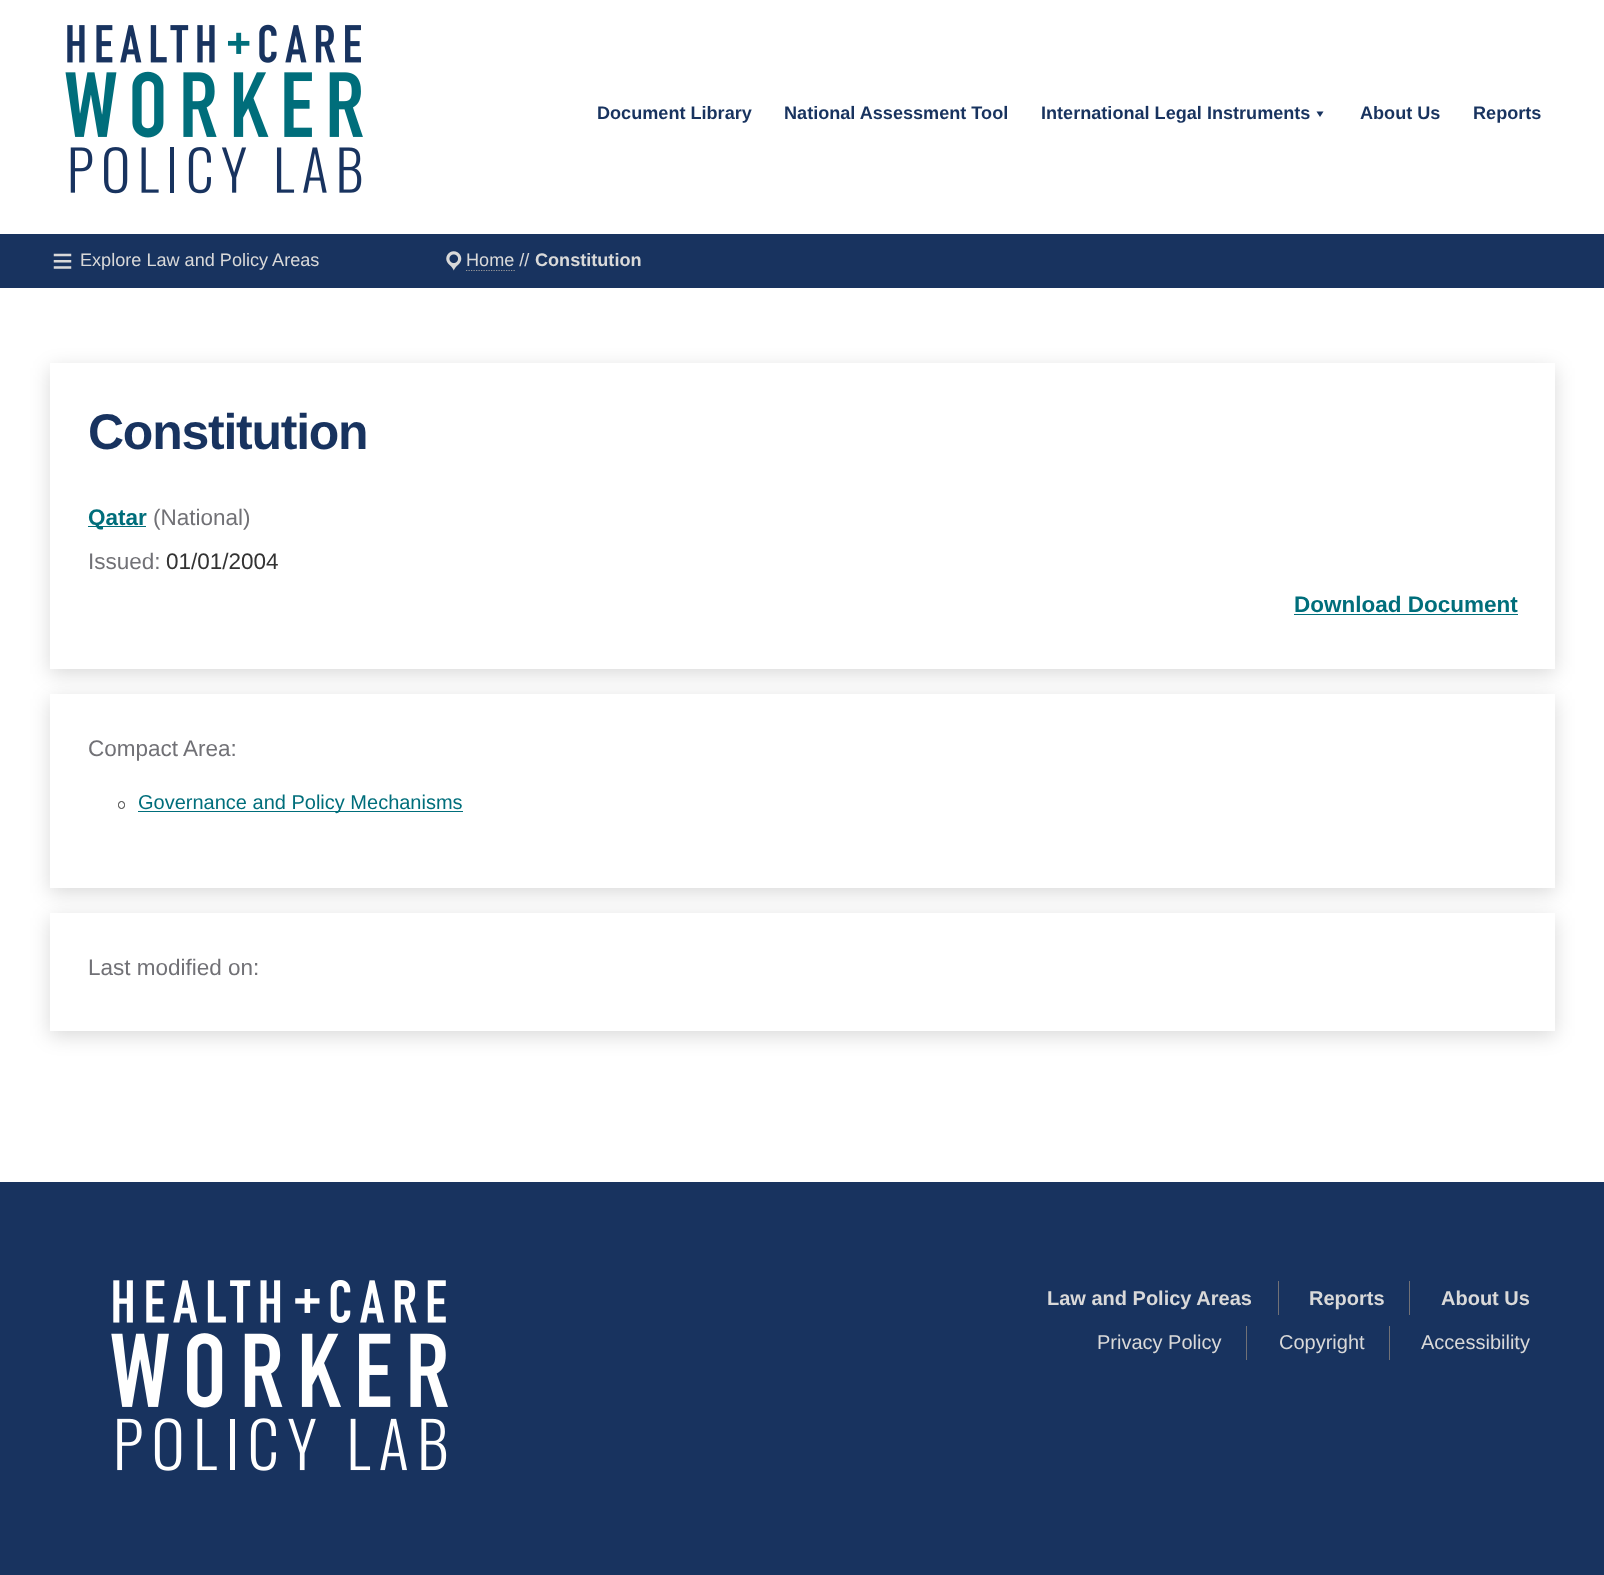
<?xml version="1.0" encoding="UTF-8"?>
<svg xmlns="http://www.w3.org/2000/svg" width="1604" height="1575">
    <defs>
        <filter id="blur1" x="-50%" y="-200%" width="200%" height="500%"><feGaussianBlur stdDeviation="10"/></filter>
        <clipPath id="clip1"><path d="M 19 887 H 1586 V 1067 H 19 Z M 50 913 H 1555 V 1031 H 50 Z" clip-rule="evenodd"/></clipPath>
    </defs>
    <rect width="100%" height="100%" fill="#FFFFFF"/>
    <image x="65" y="24" width="298" height="170" href="img_01.png"/>
    <text x="597" y="119" font-family="Liberation Sans" font-size="18.1" font-weight="700" fill="#18335F">Document Library</text>
    <text x="784" y="119" font-family="Liberation Sans" font-size="18.1" font-weight="700" fill="#18335F">National Assessment Tool</text>
    <text x="1041" y="119" font-family="Liberation Sans" font-size="18.1" font-weight="700" fill="#18335F">International Legal Instruments</text>
    <path d="M 1323.5 111.5 L 1320 117 L 1316.5 111.5 Z" fill="#18335F"/>
    <text x="1360" y="119" font-family="Liberation Sans" font-size="18.1" font-weight="700" fill="#18335F">About Us</text>
    <text x="1473" y="119" font-family="Liberation Sans" font-size="18.1" font-weight="700" fill="#18335F">Reports</text>
    <rect x="0" y="234" width="1604" height="54" fill="#18335F"/>
    <image x="53" y="253" width="19" height="16" href="img_02.png"/>
    <text x="80" y="266" font-family="Liberation Sans" font-size="18.1" fill="#D9D9D9">Explore Law and Policy Areas</text>
    <image x="446" y="251" width="16" height="20" href="img_03.png"/>
    <text x="466" y="266" font-family="Liberation Sans" font-size="18.1" fill="#D9D9D9">Home //</text>
    <path d="M 466 270.5 H 515" fill="none" stroke="#999999" stroke-width="1.2" stroke-dasharray="1.25 1.25"/>
    <text x="535" y="266" font-family="Liberation Sans" font-size="18.1" font-weight="700" fill="#D9D9D9">Constitution</text>
    <rect x="50" y="368" width="1505" height="306" fill="#000000" fill-opacity="0.15" filter="url(#blur1)"/>
    <rect x="50" y="363" width="1505" height="306" fill="#FFFFFF"/>
    <text x="88" y="449" font-family="Liberation Sans" font-size="50" font-weight="700" letter-spacing="-1.25" fill="#18335F">Constitution</text>
    <rect x="88" y="526" width="58" height="1" fill="#006E7B"/>
    <text x="88" y="525" font-family="Liberation Sans" font-size="22.5" font-weight="700" fill="#006E7B">Qatar</text>
    <text x="153" y="525" font-family="Liberation Sans" font-size="22.5" fill="#717176">(National)</text>
    <text x="88" y="569" font-family="Liberation Sans" font-size="22.5" fill="#717176">Issued:</text>
    <text x="166" y="569" font-family="Liberation Sans" font-size="22.5" fill="#333333">01/01/2004</text>
    <text x="1294" y="612" font-family="Liberation Sans" font-size="22.5" font-weight="700" fill="#006E7B">Download Document</text>
    <rect x="1294" y="614" width="224" height="1" fill="#006E7B"/>
    <rect x="50" y="699" width="1505" height="194" fill="#000000" fill-opacity="0.15" filter="url(#blur1)"/>
    <rect x="50" y="694" width="1505" height="194" fill="#FFFFFF"/>
    <text x="88" y="756" font-family="Liberation Sans" font-size="22.5" fill="#717176">Compact Area:</text>
    <rect x="118.5" y="801.5" width="6" height="7" rx="3" fill="none" stroke="#333333"/>
    <rect x="138" y="811" width="325" height="1" fill="#006E7B"/>
    <text x="138" y="809" font-family="Liberation Sans" font-size="20" fill="#006E7B">Governance and Policy Mechanisms</text>
    <g clip-path="url(#clip1)">
        <rect x="50" y="918" width="1505" height="118" fill="#000000" fill-opacity="0.15" filter="url(#blur1)"/>
    </g>
    <text x="88" y="975" font-family="Liberation Sans" font-size="22.5" fill="#717176">Last modified on:</text>
    <rect x="0" y="1182" width="1604" height="393" fill="#18335F"/>
    <image x="111" y="1280" width="337" height="191" href="img_04.png"/>
    <text x="1047" y="1305" font-family="Liberation Sans" font-size="20" font-weight="700" fill="#D9D9D9">Law and Policy Areas</text>
    <rect x="1278" y="1281" width="1" height="34" fill="#717176"/>
    <text x="1309" y="1305" font-family="Liberation Sans" font-size="20" font-weight="700" fill="#D9D9D9">Reports</text>
    <rect x="1409" y="1281" width="1" height="34" fill="#717176"/>
    <text x="1441" y="1305" font-family="Liberation Sans" font-size="20" font-weight="700" fill="#D9D9D9">About Us</text>
    <text x="1097" y="1349" font-family="Liberation Sans" font-size="20" fill="#D9D9D9">Privacy Policy</text>
    <rect x="1246" y="1326" width="1" height="34" fill="#717176"/>
    <text x="1279" y="1349" font-family="Liberation Sans" font-size="20" fill="#D9D9D9">Copyright</text>
    <rect x="1389" y="1326" width="1" height="34" fill="#717176"/>
    <text x="1421" y="1349" font-family="Liberation Sans" font-size="20" fill="#D9D9D9">Accessibility</text>
</svg>
